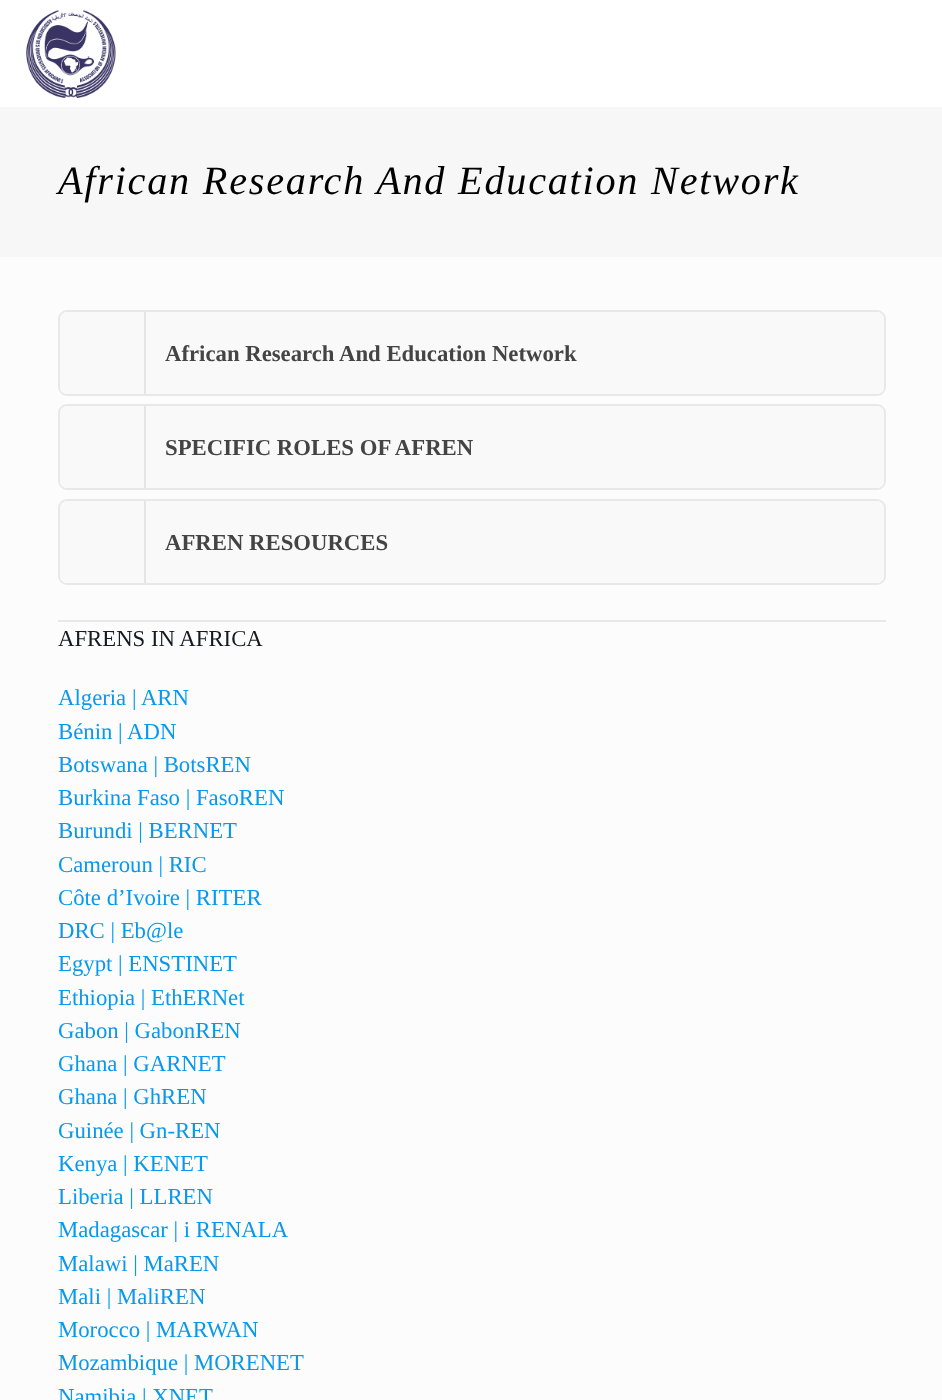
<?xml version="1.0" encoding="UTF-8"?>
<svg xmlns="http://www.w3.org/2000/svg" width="942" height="1400">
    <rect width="100%" height="100%" fill="#FCFCFC"/>
    <rect x="0" y="0" width="942" height="107" fill="#FFFFFF"/>
    <image x="26" y="10" width="90" height="88" href="img_01.png"/>
    <rect x="0" y="107" width="942" height="150" fill="#F7F7F7"/>
    <text x="58" y="194" font-family="Liberation Serif" font-size="40.25" font-style="italic" letter-spacing="1.75" fill="#000000">African Research And Education Network</text>
    <rect x="59" y="311" width="826" height="84" rx="8" fill="none" stroke="#E8E8E8" stroke-width="2"/>
    <rect x="60" y="312" width="824" height="82" rx="7" fill="#F9F9F9"/>
    <rect x="144" y="312" width="2" height="82" fill="#E5E5E5"/>
    <text x="165" y="361" font-family="Liberation Serif" font-size="22.75" font-weight="700" fill="#444444">African Research And Education Network</text>
    <rect x="59" y="405" width="826" height="84" rx="8" fill="none" stroke="#E8E8E8" stroke-width="2"/>
    <rect x="60" y="406" width="824" height="82" rx="7" fill="#F9F9F9"/>
    <rect x="144" y="406" width="2" height="82" fill="#E5E5E5"/>
    <text x="165" y="455" font-family="Liberation Serif" font-size="22.75" font-weight="700" fill="#444444">SPECIFIC ROLES OF AFREN</text>
    <rect x="59" y="500" width="826" height="84" rx="8" fill="none" stroke="#E8E8E8" stroke-width="2"/>
    <rect x="60" y="501" width="824" height="82" rx="7" fill="#F9F9F9"/>
    <rect x="144" y="501" width="2" height="82" fill="#E5E5E5"/>
    <text x="165" y="550" font-family="Liberation Serif" font-size="22.75" font-weight="700" fill="#444444">AFREN RESOURCES</text>
    <rect x="58" y="620" width="828" height="2" fill="#E8E8E8"/>
    <text x="58" y="646" font-family="Liberation Serif" font-size="22.75" fill="#161922">AFRENS IN AFRICA</text>
    <text font-family="Liberation Serif" font-size="22.75" fill="#0898EC">
        <tspan x="58" y="705">Algeria | ARN</tspan>
        <tspan x="58" y="739">Bénin | ADN</tspan>
        <tspan x="58" y="772">Botswana | BotsREN</tspan>
        <tspan x="58" y="805">Burkina Faso | FasoREN</tspan>
        <tspan x="58" y="838">Burundi | BERNET</tspan>
        <tspan x="58" y="872">Cameroun | RIC</tspan>
        <tspan x="58" y="905">Côte d’Ivoire | RITER</tspan>
        <tspan x="58" y="938">DRC | Eb@le</tspan>
        <tspan x="58" y="971">Egypt | ENSTINET</tspan>
        <tspan x="58" y="1005">Ethiopia | EthERNet</tspan>
        <tspan x="58" y="1038">Gabon | GabonREN</tspan>
        <tspan x="58" y="1071">Ghana | GARNET</tspan>
        <tspan x="58" y="1104">Ghana | GhREN</tspan>
        <tspan x="58" y="1138">Guinée | Gn-REN</tspan>
        <tspan x="58" y="1171">Kenya | KENET</tspan>
        <tspan x="58" y="1204">Liberia | LLREN</tspan>
        <tspan x="58" y="1237">Madagascar | i RENALA</tspan>
        <tspan x="58" y="1271">Malawi | MaREN</tspan>
        <tspan x="58" y="1304">Mali | MaliREN</tspan>
        <tspan x="58" y="1337">Morocco | MARWAN</tspan>
        <tspan x="58" y="1370">Mozambique | MORENET</tspan>
        <tspan x="58" y="1404">Namibia | XNET</tspan>
    </text>
</svg>
